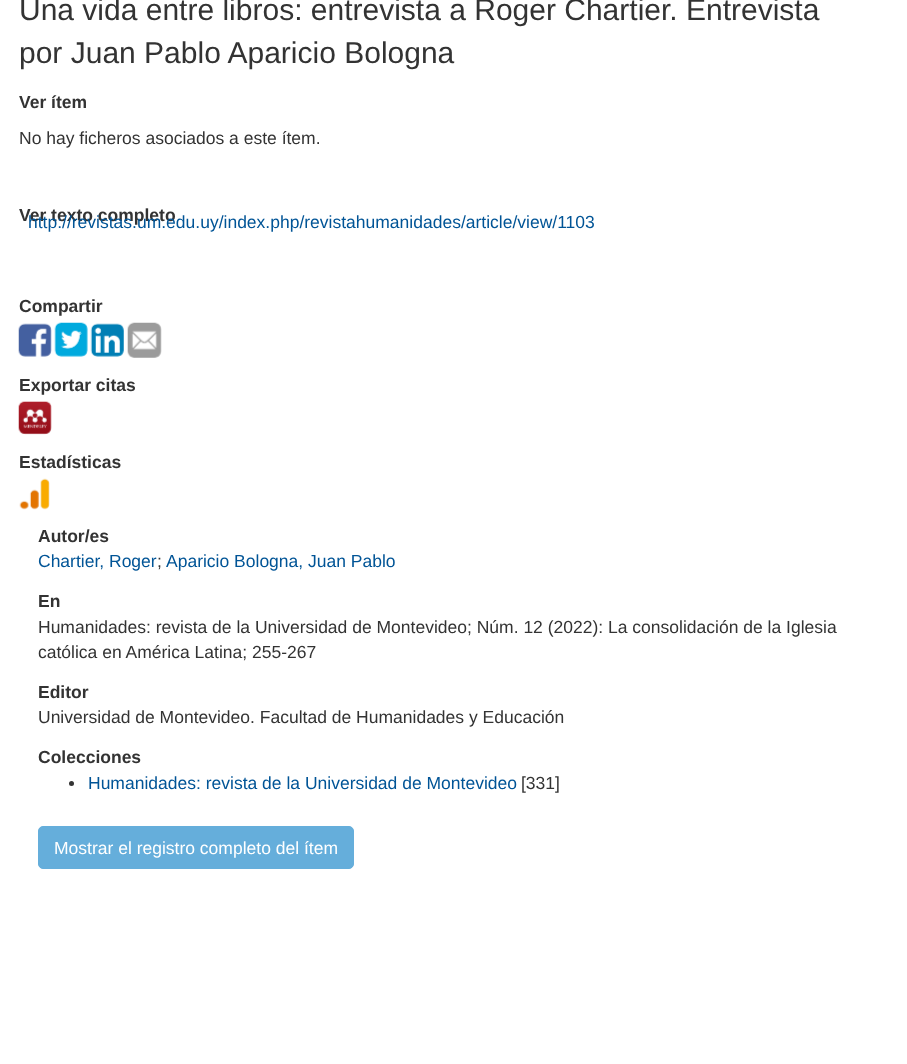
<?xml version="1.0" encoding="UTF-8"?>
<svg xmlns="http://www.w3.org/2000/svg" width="907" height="1064">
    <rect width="100%" height="100%" fill="#FFFFFF"/>
    <text font-family="Liberation Sans" font-size="30" fill="#333333">
        <tspan x="19" y="20">Una vida entre libros: entrevista a Roger Chartier. Entrevista</tspan>
        <tspan x="19" y="63">por Juan Pablo Aparicio Bologna</tspan>
    </text>
    <text x="19" y="108" font-family="Liberation Sans" font-size="17.5" font-weight="700" fill="#333333">Ver ítem</text>
    <text x="19" y="144" font-family="Liberation Sans" font-size="17.5" fill="#333333">No hay ficheros asociados a este ítem.</text>
    <text x="19" y="221" font-family="Liberation Sans" font-size="17.5" font-weight="700" fill="#333333">Ver texto completo</text>
    <text x="28" y="228" font-family="Liberation Sans" font-size="17.5" fill="#005496">http://revistas.um.edu.uy/index.php/revistahumanidades/article/view/1103</text>
    <text x="19" y="312" font-family="Liberation Sans" font-size="17.5" font-weight="700" fill="#333333">Compartir</text>
    <image x="18" y="323" width="34" height="34" href="img_01.png"/>
    <image x="54" y="322" width="34" height="35" href="img_02.png"/>
    <image x="90" y="323" width="34" height="34" href="img_03.png"/>
    <image x="127" y="322" width="35" height="36" href="img_04.png"/>
    <text x="19" y="391" font-family="Liberation Sans" font-size="17.5" font-weight="700" fill="#333333">Exportar citas</text>
    <image x="18" y="401" width="34" height="34" href="img_05.png"/>
    <text x="19" y="468" font-family="Liberation Sans" font-size="17.5" font-weight="700" fill="#333333">Estadísticas</text>
    <image x="19" y="478" width="31" height="32" href="img_06.png"/>
    <text x="38" y="542" font-family="Liberation Sans" font-size="17.5" font-weight="700" fill="#333333">Autor/es</text>
    <text x="38" y="567" font-family="Liberation Sans" font-size="17.5" fill="#005496">Chartier, Roger</text>
    <text x="157" y="567" font-family="Liberation Sans" font-size="17.5" fill="#333333">;</text>
    <text x="166" y="567" font-family="Liberation Sans" font-size="17.5" fill="#005496">Aparicio Bologna, Juan Pablo</text>
    <text x="38" y="607" font-family="Liberation Sans" font-size="17.5" font-weight="700" fill="#333333">En</text>
    <text font-family="Liberation Sans" font-size="17.5" fill="#333333">
        <tspan x="38" y="633">Humanidades: revista de la Universidad de Montevideo; Núm. 12 (2022): La consolidación de la Iglesia</tspan>
        <tspan x="38" y="658">católica en América Latina; 255-267</tspan>
    </text>
    <text x="38" y="698" font-family="Liberation Sans" font-size="17.5" font-weight="700" fill="#333333">Editor</text>
    <text x="38" y="723" font-family="Liberation Sans" font-size="17.5" fill="#333333">Universidad de Montevideo. Facultad de Humanidades y Educación</text>
    <text x="38" y="763" font-family="Liberation Sans" font-size="17.5" font-weight="700" fill="#333333">Colecciones</text>
    <circle cx="71.5" cy="783.5" r="2.5" fill="#333333"/>
    <text x="88" y="789" font-family="Liberation Sans" font-size="17.5" fill="#005496">Humanidades: revista de la Universidad de Montevideo</text>
    <text x="521" y="789" font-family="Liberation Sans" font-size="17.5" fill="#333333">[331]</text>
    <rect x="38.5" y="826.5" width="315" height="42" rx="4.5" fill="#65AEDB" stroke="#65AEDB"/>
    <text x="54" y="854" font-family="Liberation Sans" font-size="17.5" fill="#FFFFFF">Mostrar el registro completo del ítem</text>
</svg>
